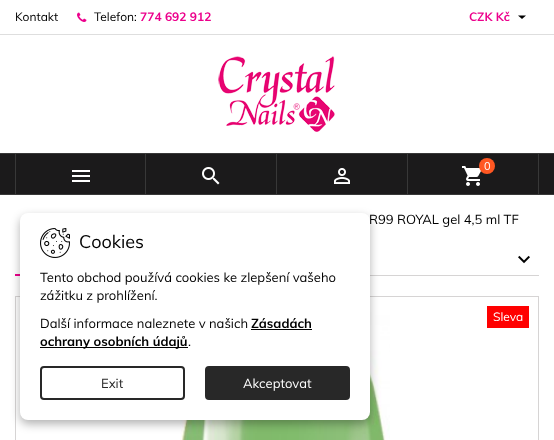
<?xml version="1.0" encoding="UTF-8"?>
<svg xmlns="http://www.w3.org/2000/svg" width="554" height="440">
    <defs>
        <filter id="blur1" x="-50%" y="-200%" width="200%" height="500%"><feGaussianBlur stdDeviation="5"/></filter>
    </defs>
    <rect width="100%" height="100%" fill="#FFFFFF"/>
    <rect x="0" y="34" width="554" height="1" fill="#DEDEDE"/>
    <text x="15" y="21" font-family="Muli" font-size="12" fill="#000000">Kontakt</text>
    <image x="77" y="12" width="10" height="10" href="img_01.png"/>
    <text x="94" y="21" font-family="Muli" font-size="12" fill="#000000">Telefon:</text>
    <text x="140" y="21" font-family="Muli" font-size="12" font-weight="700" fill="#EC008C">774 692 912</text>
    <text x="469" y="21" font-family="Muli" font-size="12" font-weight="700" fill="#EC008C">CZK Kč</text>
    <path d="M 518 15.5 H 526 L 522 19 Z" fill="#000000"/>
    <image x="218" y="56" width="117" height="76" href="img_02.png"/>
    <rect x="0" y="154" width="554" height="40" fill="#1B1A1B"/>
    <rect x="0" y="153" width="554" height="1" fill="#383838"/>
    <rect x="0" y="194" width="554" height="1" fill="#383838"/>
    <rect x="145" y="154" width="1" height="40" fill="#383838"/>
    <rect x="15" y="154" width="1" height="40" fill="#383838"/>
    <image x="72" y="170" width="18" height="12" href="img_03.png"/>
    <rect x="276" y="154" width="1" height="40" fill="#383838"/>
    <image x="202" y="167" width="18" height="18" href="img_04.png"/>
    <rect x="407" y="154" width="1" height="40" fill="#383838"/>
    <image x="334" y="168" width="16" height="16" href="img_05.png"/>
    <rect x="538" y="154" width="1" height="40" fill="#383838"/>
    <image x="462" y="166" width="19" height="20" href="img_06.png"/>
    <circle cx="487" cy="166" r="8" fill="#FF5722"/>
    <text x="484" y="170" font-family="Muli" font-size="11" fill="#FFFFFF">0</text>
    <rect x="370" y="275" width="169" height="1" fill="#D6D4D4"/>
    <rect x="15" y="274" width="5" height="2" fill="#EC008C"/>
    <rect x="15.5" y="296.5" width="523" height="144" fill="none" stroke="#D6D4D4"/>
    <image x="180" y="311" width="210" height="129" href="img_09.png"/>
    <rect x="20" y="217" width="350" height="207" rx="8" fill="#000000" fill-opacity="0.3" filter="url(#blur1)"/>
    <rect x="20" y="213" width="350" height="207" rx="8" fill="#FFFFFF"/>
    <image x="40" y="228" width="30" height="30" href="img_07.png"/>
    <text x="79" y="248" font-family="Muli" font-size="18" fill="#000000">Cookies</text>
    <text font-family="Muli" font-size="13" fill="#000000">
        <tspan x="40" y="282">Tento obchod používá cookies ke zlepšení vašeho</tspan>
        <tspan x="40" y="300">zážitku z prohlížení.</tspan>
    </text>
    <text x="40" y="328" font-family="Muli" font-size="13" fill="#000000">Další informace naleznete v našich</text>
    <text x="251" y="328" font-family="Muli" font-size="13" font-weight="700" fill="#000000">Zásadách</text>
    <rect x="251" y="329" width="61" height="1" fill="#000000"/>
    <rect x="40" y="347" width="148" height="1" fill="#000000"/>
    <text x="40" y="346" font-family="Muli" font-size="13" font-weight="700" fill="#000000">ochrany osobních údajů</text>
    <text x="188" y="346" font-family="Muli" font-size="13" fill="#000000">.</text>
    <rect x="41" y="367" width="143" height="32" rx="3" fill="none" stroke="#282828" stroke-width="2"/>
    <text x="101" y="388" font-family="Muli" font-size="13" fill="#282828">Exit</text>
    <rect x="206" y="367" width="143" height="32" rx="3" fill="#282828" stroke="#282828" stroke-width="2"/>
    <text x="243" y="388" font-family="Muli" font-size="13" fill="#FFFFFF">Akceptovat</text>
    <text x="369" y="224" font-family="Muli" font-size="13" fill="#000000">R99 ROYAL gel 4,5 ml TF</text>
    <image x="518" y="255" width="12" height="9" href="img_08.png"/>
    <rect x="487" y="306" width="42" height="22" fill="#FF0000"/>
    <text x="493" y="321" font-family="Muli" font-size="12" fill="#FFFFFF">Sleva</text>
</svg>
